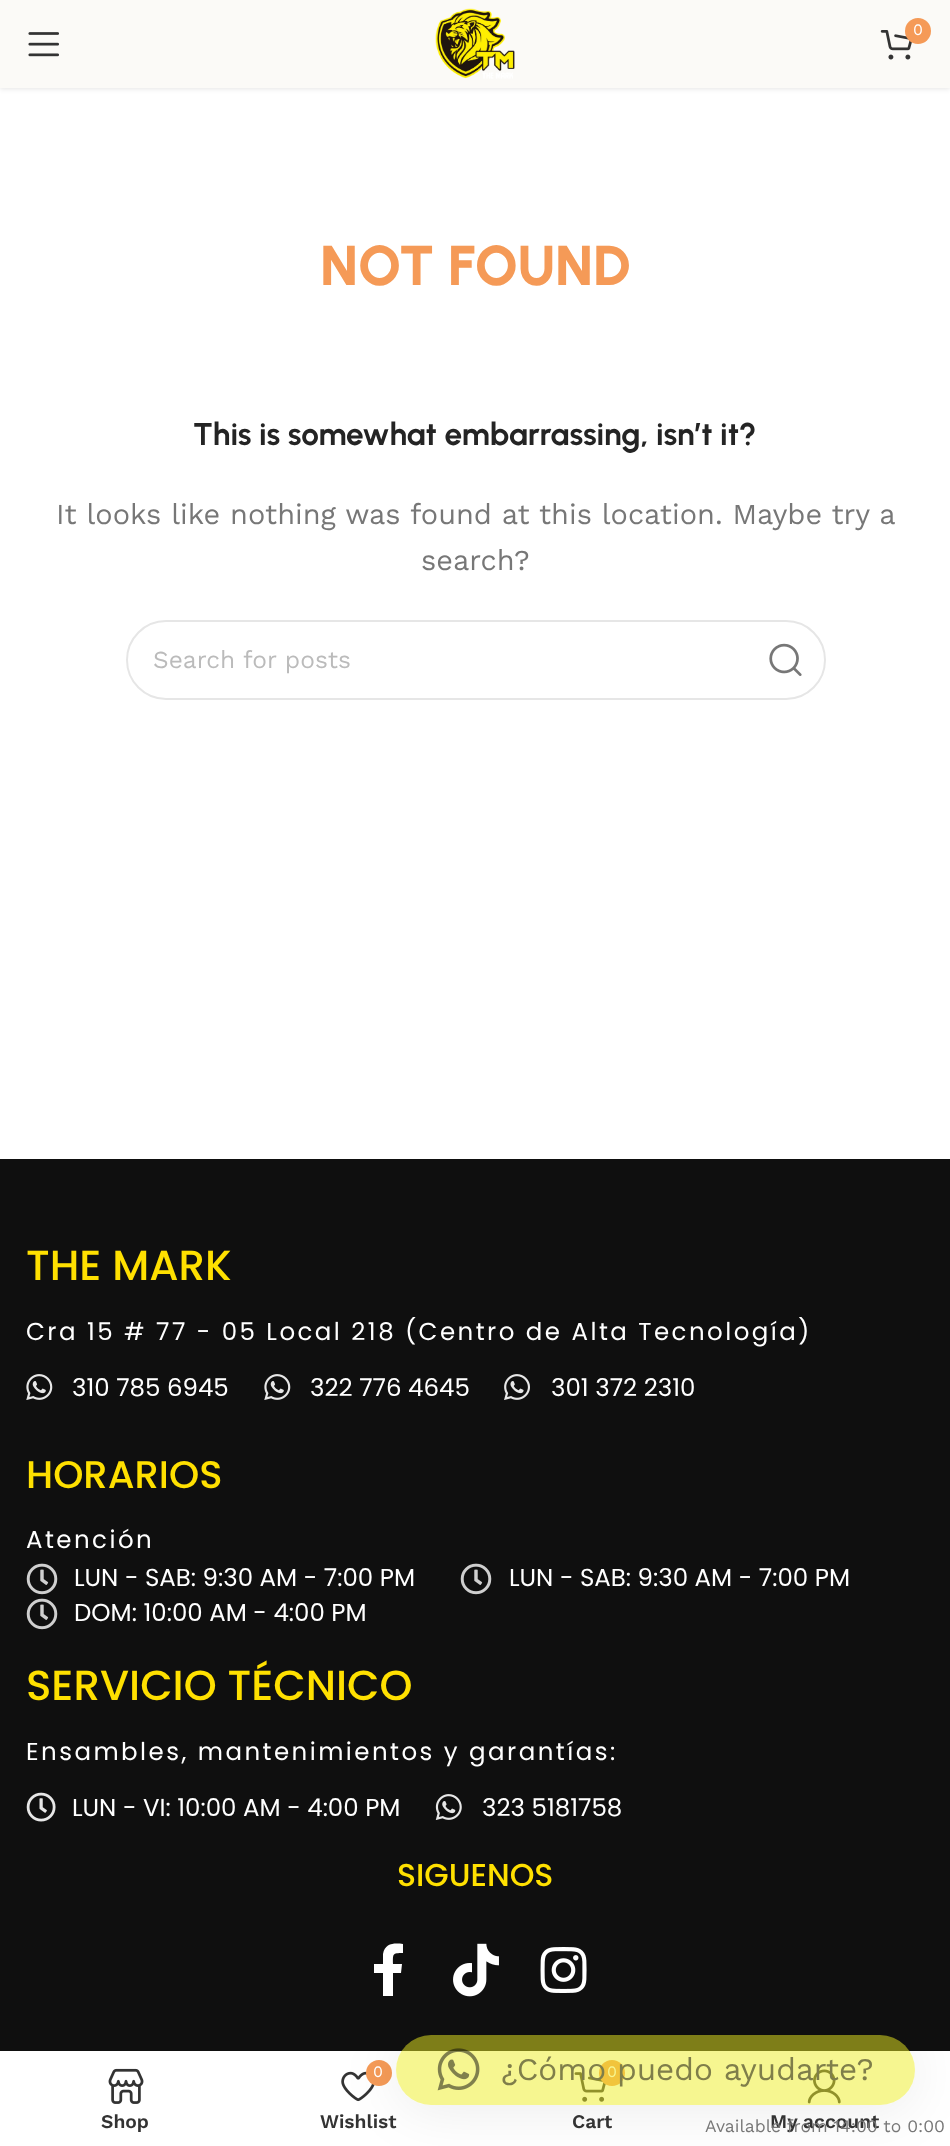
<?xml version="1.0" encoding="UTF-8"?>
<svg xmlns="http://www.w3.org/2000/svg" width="950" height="2146">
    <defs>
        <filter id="blur1" x="-50%" y="-200%" width="200%" height="500%"><feGaussianBlur stdDeviation="2.5"/></filter>
        <clipPath id="clip1"><path d="M 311 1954 H 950 V 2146 H 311 Z M 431 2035 H 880 C 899.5 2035 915 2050.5 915 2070 C 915 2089.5 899.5 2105 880 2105 H 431 C 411.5 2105 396 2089.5 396 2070 C 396 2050.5 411.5 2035 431 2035 Z" clip-rule="evenodd"/></clipPath>
        <filter id="blur2" x="-50%" y="-200%" width="200%" height="500%"><feGaussianBlur stdDeviation="28"/></filter>
    </defs>
    <rect width="100%" height="100%" fill="#FFFFFF"/>
    <rect x="0" y="2" width="950" height="87" fill="#000000" fill-opacity="0.1" filter="url(#blur1)"/>
    <rect x="0" y="0" width="950" height="88" fill="#FBFAF7"/>
    <image x="435" y="8" width="80" height="71" href="img_01.png"/>
    <image x="880" y="30" width="32" height="30" href="img_02.png"/>
    <circle cx="918" cy="31" r="13" fill="#F59A57"/>
    <text x="913" y="35" font-family="Work Sans" font-size="16" fill="#FFFFFF">0</text>
    <image x="28" y="32" width="31" height="25" href="img_03.png"/>
    <text x="320" y="285" font-family="Urbanist" font-size="56" font-weight="800" fill="#F59A57">NOT FOUND</text>
    <text x="193" y="445" font-family="Urbanist" font-size="31.5" font-weight="700" fill="#242424">This is somewhat embarrassing, isn’t it?</text>
    <text x="56" y="524" font-family="Work Sans" font-size="28.9" fill="#777777">It looks like nothing was found at this location. Maybe try a</text>
    <text x="421" y="570" font-family="Work Sans" font-size="28.9" fill="#777777">search?</text>
    <rect x="127" y="621" width="698" height="78" rx="39" fill="none" stroke="#E6E6E6" stroke-width="2"/>
    <text x="153" y="668" font-family="Work Sans" font-size="24.5" fill="#BBBBBB">Search for posts</text>
    <image x="769" y="643" width="33" height="33" href="img_04.png"/>
    <rect x="0" y="1159" width="950" height="892" fill="#0F0F0F"/>
    <text x="26" y="1280" font-family="Poppins" font-size="42" font-weight="500" fill="#FFE000">THE MARK</text>
    <text x="26" y="1340" font-family="Poppins" font-size="24.5" letter-spacing="2.45" fill="#FFFFFF">Cra 15 # 77 - 05 Local 218 (Centro de Alta Tecnología)</text>
    <image x="26" y="1374" width="27" height="26" href="img_05.png"/>
    <text x="72" y="1396" font-family="Poppins" font-size="24.5" fill="#FFFFFF">310 785 6945</text>
    <image x="264" y="1374" width="27" height="26" href="img_05.png"/>
    <text x="310" y="1396" font-family="Poppins" font-size="24.5" fill="#FFFFFF">322 776 4645</text>
    <image x="504" y="1374" width="26" height="26" href="img_06.png"/>
    <text x="551" y="1396" font-family="Poppins" font-size="24.5" fill="#FFFFFF">301 372 2310</text>
    <text x="26" y="1488" font-family="Poppins" font-size="38.5" font-weight="500" fill="#FFE000">HORARIOS</text>
    <text x="26" y="1548" font-family="Poppins" font-size="24.5" letter-spacing="2.45" fill="#FFFFFF">Atención</text>
    <image x="26" y="1563" width="32" height="32" href="img_07.png"/>
    <text x="74" y="1586" font-family="Poppins" font-size="24.5" fill="#FFFFFF">LUN - SAB: 9:30 AM - 7:00 PM</text>
    <image x="460" y="1563" width="32" height="32" href="img_07.png"/>
    <text x="509" y="1586" font-family="Poppins" font-size="24.5" fill="#FFFFFF">LUN - SAB: 9:30 AM - 7:00 PM</text>
    <image x="26" y="1598" width="32" height="32" href="img_07.png"/>
    <text x="74" y="1621" font-family="Poppins" font-size="24.5" fill="#FFFFFF">DOM: 10:00 AM - 4:00 PM</text>
    <text x="26" y="1700" font-family="Poppins" font-size="42" font-weight="500" fill="#FFE000">SERVICIO TÉCNICO</text>
    <text x="26" y="1760" font-family="Poppins" font-size="24.5" letter-spacing="2.45" fill="#FFFFFF">Ensambles, mantenimientos y garantías:</text>
    <image x="26" y="1792" width="30" height="30" href="img_08.png"/>
    <text x="72" y="1816" font-family="Poppins" font-size="24.5" fill="#FFFFFF">LUN - VI: 10:00 AM - 4:00 PM</text>
    <image x="435" y="1794" width="27" height="26" href="img_09.png"/>
    <text x="482" y="1816" font-family="Poppins" font-size="24.5" fill="#FFFFFF">323 5181758</text>
    <text x="397" y="1886" font-family="Poppins" font-size="31.5" font-weight="500" fill="#FFE000">SIGUENOS</text>
    <path d="M 401 1973 H 393 V 1996 H 383 V 1973 H 374 V 1964 H 383 V 1954 C 385 1943 394 1943 403 1944 V 1953 C 392 1953 393 1954 393 1964 H 402 Z" fill="#FFFFFF"/>
    <image x="453" y="1943" width="46" height="54" href="img_10.png"/>
    <image x="540" y="1947" width="47" height="46" href="img_11.png"/>
    <image x="341" y="2071" width="34" height="31" href="img_14.png"/>
    <circle cx="379" cy="2073" r="13" fill="#F59A57"/>
    <image x="574" y="2072" width="32" height="30" href="img_15.png"/>
    <circle cx="612" cy="2073" r="13" fill="#F59A57"/>
    <image x="807" y="2069" width="34" height="35" href="img_16.png"/>
    <g clip-path="url(#clip1)">
        <rect x="396" y="2039" width="519" height="70" rx="35" fill="#000000" fill-opacity="0.08" filter="url(#blur2)"/>
    </g>
    <text x="607" y="2077" font-family="Work Sans" font-size="16" fill="#FFFFFF">0</text>
    <rect x="396" y="2035" width="519" height="70" rx="35" fill="#EEEE22" fill-opacity="0.5"/>
    <image x="437" y="2048" width="43" height="43" href="img_12.png"/>
    <text x="501" y="2080" font-family="Work Sans" font-size="31.5" fill="#7F7E4A">¿Cómo puedo ayudarte?</text>
    <text x="770" y="2128" font-family="Work Sans" font-size="19.25" font-weight="600" fill="#333333">My account</text>
    <text x="705" y="2132" font-family="Work Sans" font-size="17.5" fill="#777777">Available from 14:00 to 0:00</text>
    <image x="108" y="2068" width="36" height="36" href="img_13.png"/>
    <text x="101" y="2128" font-family="Work Sans" font-size="19.25" font-weight="600" fill="#333333">Shop</text>
    <text x="373" y="2077" font-family="Work Sans" font-size="16" fill="#FFFFFF">0</text>
    <text x="320" y="2128" font-family="Work Sans" font-size="19.25" font-weight="600" fill="#333333">Wishlist</text>
    <text x="572" y="2128" font-family="Work Sans" font-size="19.25" font-weight="600" fill="#333333">Cart</text>
</svg>
